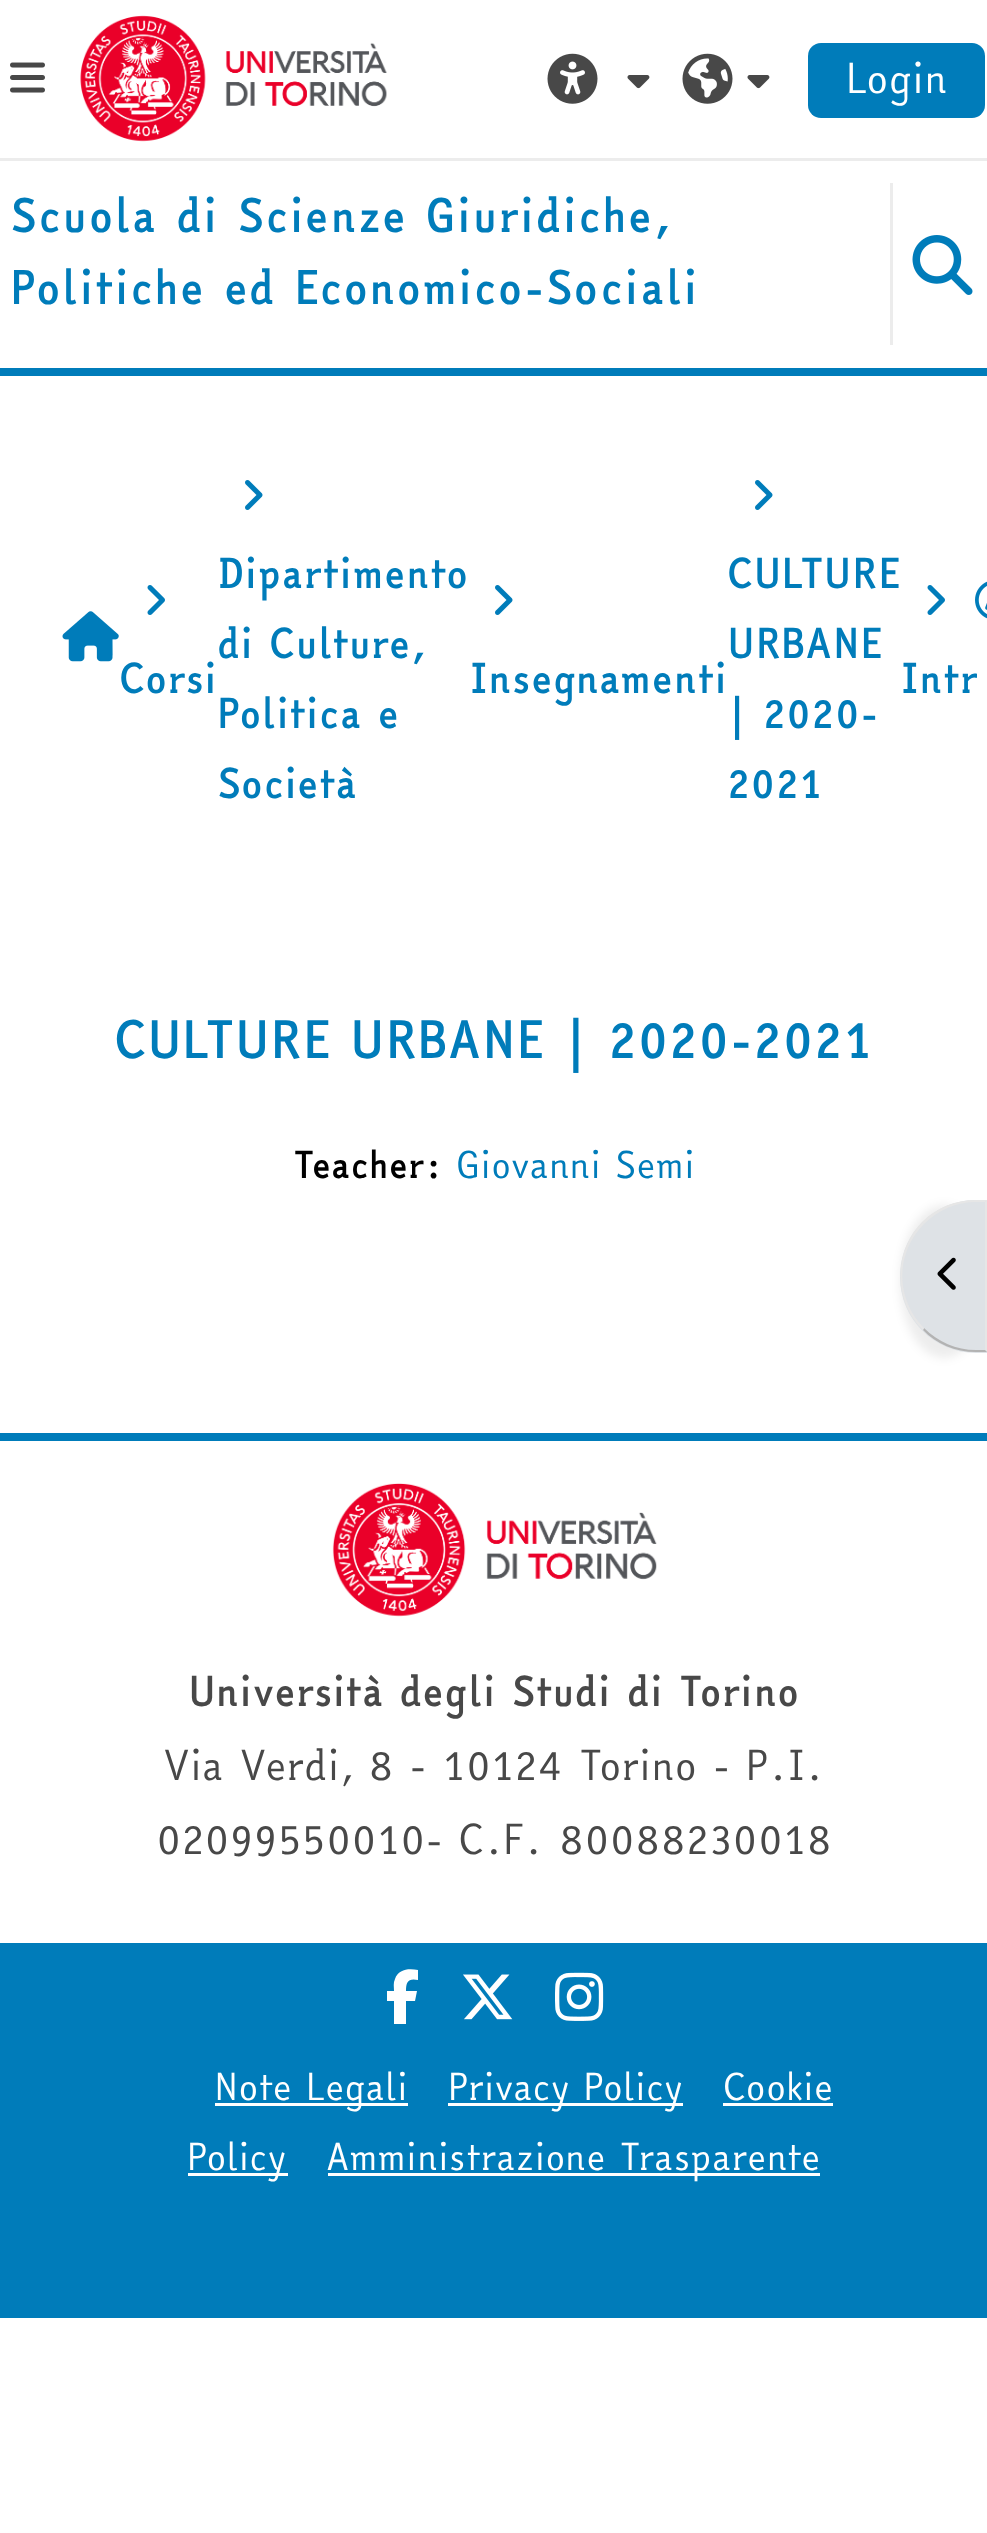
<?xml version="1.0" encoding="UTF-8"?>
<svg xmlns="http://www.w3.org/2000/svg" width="987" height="2533">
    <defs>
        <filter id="blur1" x="-50%" y="-200%" width="200%" height="500%"><feGaussianBlur stdDeviation="5"/></filter>
    </defs>
    <rect width="100%" height="100%" fill="#FFFFFF"/>
    <rect x="0" y="368" width="987" height="8" fill="#007CBA"/>
    <rect x="0" y="158" width="987" height="3" fill="#ECECEC"/>
    <image x="10" y="62" width="35" height="31" href="img_01.png"/>
    <image x="80" y="15" width="307" height="127" href="img_02.png"/>
    <image x="547" y="53" width="51" height="51" href="img_03.png"/>
    <image x="627" y="75" width="23" height="14" href="img_04.png"/>
    <image x="682" y="53" width="51" height="51" href="img_05.png"/>
    <image x="747" y="75" width="23" height="14" href="img_04.png"/>
    <rect x="808" y="43" width="177" height="75" rx="13" fill="#007CBA"/>
    <text x="846" y="93" font-family="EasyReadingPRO" font-size="40" fill="#FFFFFF">Login</text>
    <text font-family="EasyReadingPRO" font-size="45" font-weight="700" letter-spacing="0.9" fill="#007CBA">
        <tspan x="10" y="232">Scuola di Scienze Giuridiche,</tspan>
        <tspan x="10" y="304">Politiche ed Economico-Sociali</tspan>
    </text>
    <rect x="890" y="183" width="3" height="162" fill="#ECECEC"/>
    <image x="912" y="235" width="61" height="60" href="img_06.png"/>
    <image x="62" y="611" width="57" height="51" href="img_07.png"/>
    <image x="245" y="480" width="18" height="30" href="img_08.png"/>
    <text font-family="EasyReadingPRO" font-size="40" font-weight="700" fill="#007CBA">
        <tspan x="217" y="588">Dipartimento</tspan>
        <tspan x="217" y="658">di Culture,</tspan>
        <tspan x="217" y="728">Politica e</tspan>
        <tspan x="217" y="798">Società</tspan>
    </text>
    <image x="755" y="480" width="18" height="30" href="img_08.png"/>
    <text font-family="EasyReadingPRO" font-size="40" font-weight="700" fill="#007CBA">
        <tspan x="727" y="588">CULTURE</tspan>
        <tspan x="727" y="658">URBANE</tspan>
        <tspan x="727" y="728">| 2020-</tspan>
        <tspan x="727" y="798">2021</tspan>
    </text>
    <image x="147" y="585" width="18" height="30" href="img_09.png"/>
    <text x="119" y="693" font-family="EasyReadingPRO" font-size="40" font-weight="700" fill="#007CBA">Corsi</text>
    <image x="495" y="585" width="18" height="30" href="img_08.png"/>
    <text x="469" y="693" font-family="EasyReadingPRO" font-size="40" font-weight="700" fill="#007CBA">Insegnamenti</text>
    <image x="927" y="585" width="18" height="30" href="img_09.png"/>
    <image x="975" y="581" width="12" height="38" href="img_10.png"/>
    <text x="900" y="693" font-family="EasyReadingPRO" font-size="40" font-weight="700" fill="#007CBA">Intr</text>
    <text x="114" y="1058" font-family="EasyReadingPRO" font-size="50" font-weight="700" fill="#007CBA">CULTURE URBANE | 2020-2021</text>
    <text x="293" y="1178" font-family="EasyReadingPRO" font-size="36" font-weight="700" fill="#000000">Teacher:</text>
    <text x="456" y="1178" font-family="EasyReadingPRO" font-size="36" fill="#007CBA">Giovanni Semi</text>
    <rect x="900" y="1205" width="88" height="153" rx="76" fill="#000000" fill-opacity="0.07" filter="url(#blur1)"/>
    <path d="M 976 1200 H 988 V 1353 H 976 C 934 1353 900 1319 900 1277 V 1276 C 900 1234 934 1200 976 1200 Z" fill="#DEE2E6"/>
    <path d="M 976 1200 C 955 1200 936 1208 922 1222 L 924 1224 C 938 1210 956 1202 976 1202 H 985 L 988 1200 Z" fill="#E6E6E6"/>
    <path d="M 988 1200 V 1352 L 985 1350 V 1202 Z" fill="#E6E6E6"/>
    <path d="M 987 1352 H 976 C 955 1352 936 1344 923 1330 L 924 1328 C 938 1342 956 1350 976 1350 H 985 Z" fill="#B3B3B3"/>
    <path d="M 923 1330 C 893 1301 893 1252 922 1222 L 924 1224 C 895 1253 895 1299 924 1328 Z" fill="#E6E6E6"/>
    <image x="937" y="1257" width="19" height="33" href="img_11.png"/>
    <rect x="0" y="1433" width="987" height="8" fill="#007CBA"/>
    <image x="332" y="1483" width="325" height="134" href="img_12.png"/>
    <text x="188" y="1706" font-family="EasyReadingPRO" font-size="40" font-weight="700" fill="#484848">Università degli Studi di Torino</text>
    <text x="163" y="1780" font-family="EasyReadingPRO" font-size="40" fill="#484848">Via Verdi, 8 - 10124 Torino - P.I.</text>
    <text x="156" y="1854" font-family="EasyReadingPRO" font-size="40" fill="#484848">02099550010- C.F. 80088230018</text>
    <rect x="0" y="1943" width="987" height="375" fill="#007CBA"/>
    <path d="M 394 2001 V 2024 V 2001 V 2024 H 406 V 2001 H 415 L 417 1991 H 406 C 406 1982 408 1978 418 1980 V 1970 C 409 1968 398 1969 395 1979 C 393 1983 394 1987 394 1991 H 387 V 2001 Z" fill="#FFFFFF"/>
    <image x="463" y="1974" width="50" height="46" href="img_13.png"/>
    <image x="555" y="1972" width="49" height="49" href="img_14.png"/>
    <rect x="215" y="2103" width="193" height="3" fill="#FFFFFF"/>
    <text x="214" y="2100" font-family="EasyReadingPRO" font-size="36" fill="#FFFFFF">Note Legali</text>
    <rect x="448" y="2103" width="235" height="3" fill="#FFFFFF"/>
    <text x="448" y="2100" font-family="EasyReadingPRO" font-size="36" fill="#FFFFFF">Privacy Policy</text>
    <text x="723" y="2100" font-family="EasyReadingPRO" font-size="36" fill="#FFFFFF">Cookie</text>
    <rect x="723" y="2103" width="110" height="3" fill="#FFFFFF"/>
    <rect x="188" y="2173" width="100" height="3" fill="#FFFFFF"/>
    <text x="187" y="2170" font-family="EasyReadingPRO" font-size="36" fill="#FFFFFF">Policy</text>
    <rect x="328" y="2173" width="492" height="3" fill="#FFFFFF"/>
    <text x="326" y="2170" font-family="EasyReadingPRO" font-size="36" fill="#FFFFFF">Amministrazione Trasparente</text>
</svg>
